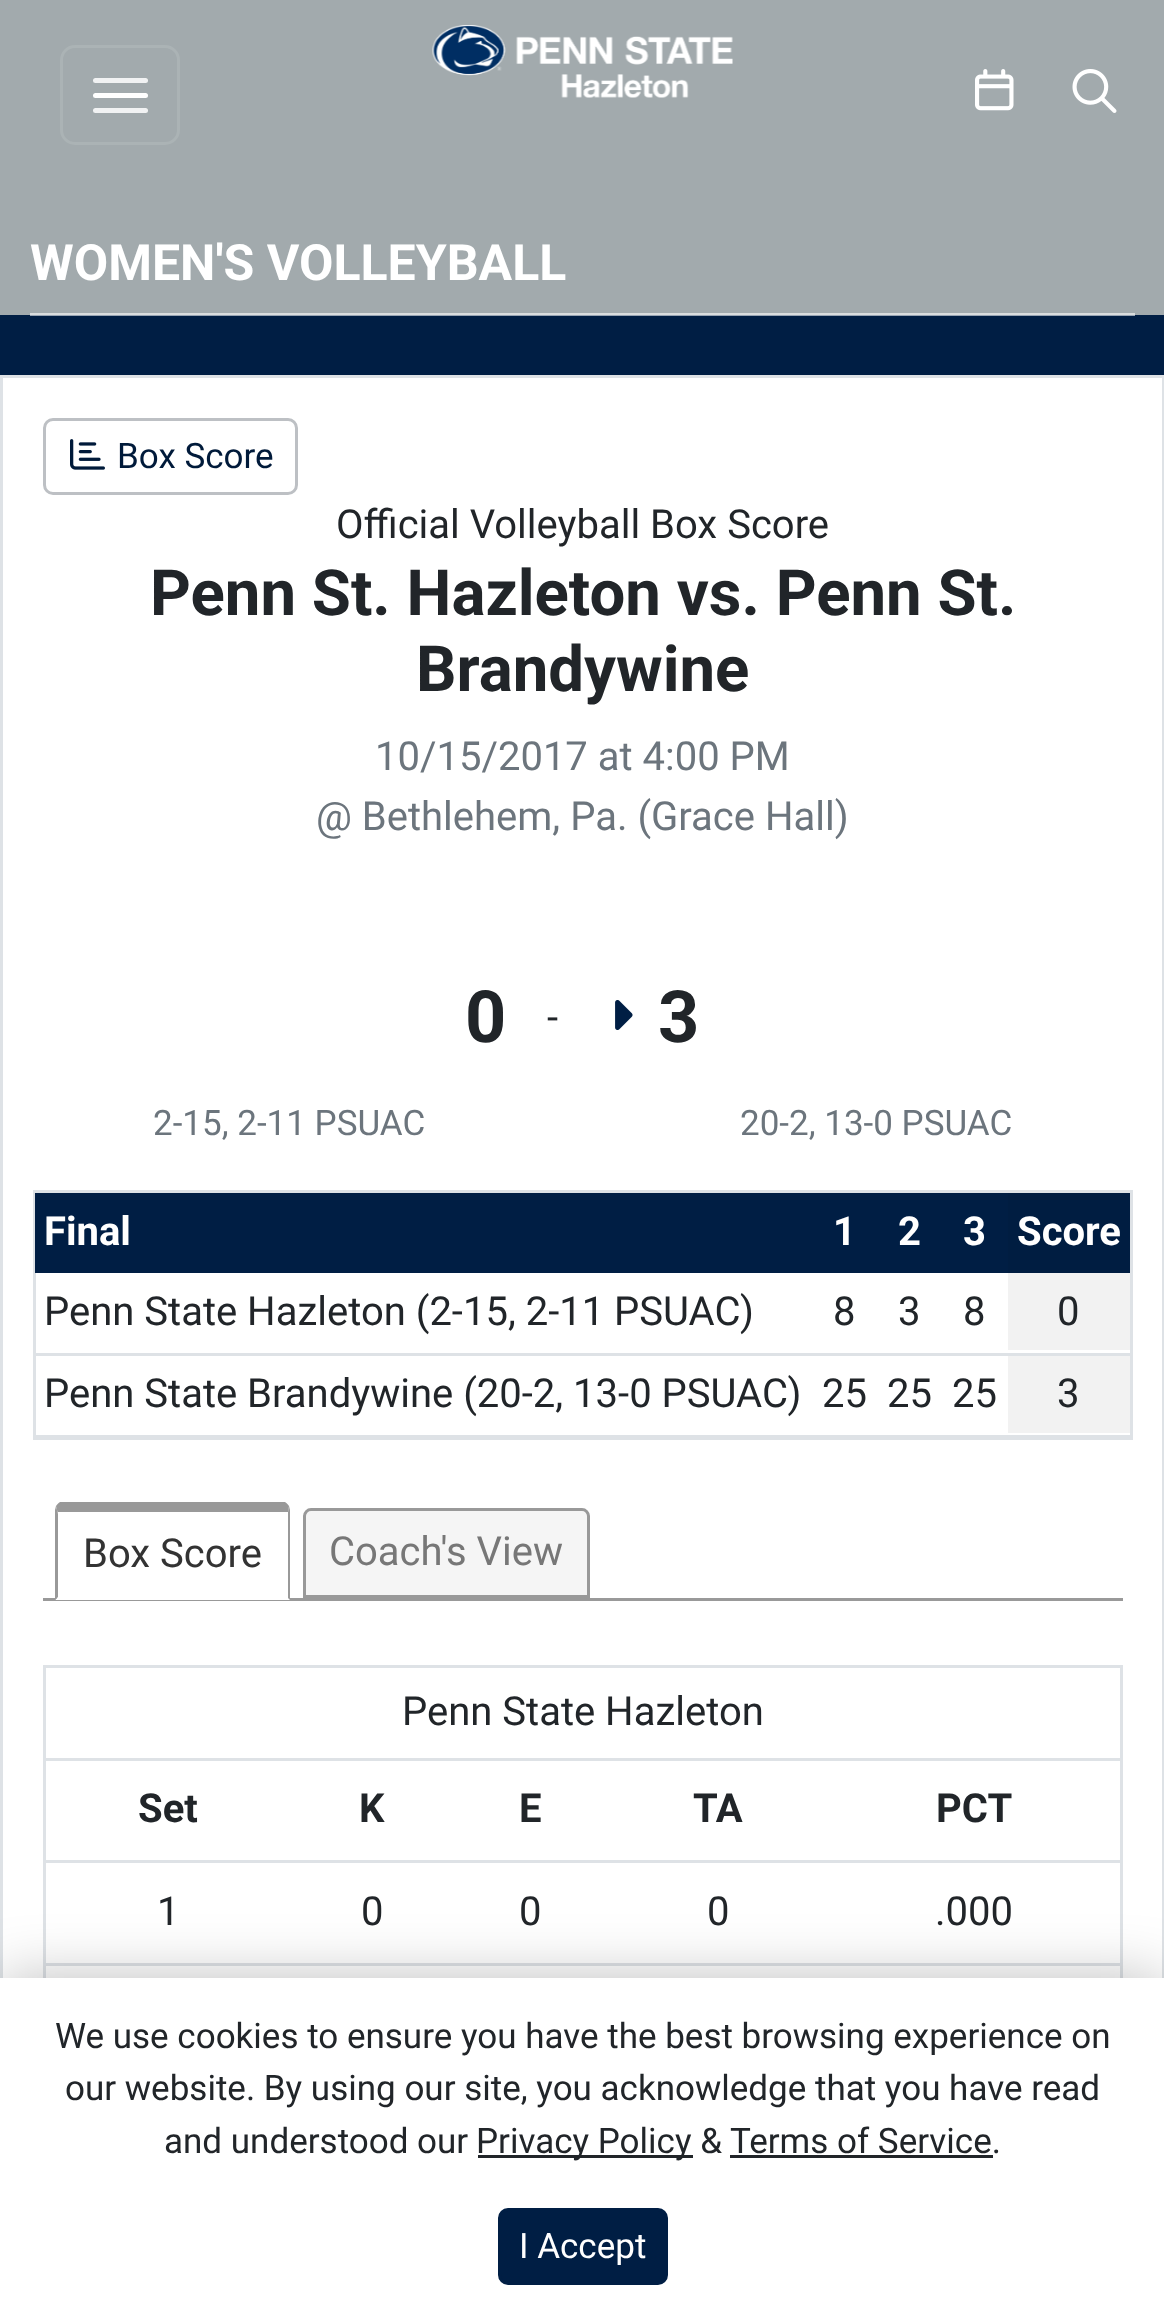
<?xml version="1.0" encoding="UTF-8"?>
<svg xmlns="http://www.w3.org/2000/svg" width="1164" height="2316">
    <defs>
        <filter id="blur1" x="-50%" y="-200%" width="200%" height="500%"><feGaussianBlur stdDeviation="30"/></filter>
    </defs>
    <rect width="100%" height="100%" fill="#001E44"/>
    <rect x="30" y="315" width="1105" height="1" fill="#99A5B4"/>
    <rect x="0" y="0" width="1164" height="315" fill="#A2AAAD"/>
    <rect x="30" y="313" width="1105" height="2" fill="#DADDDE"/>
    <rect x="61.5" y="46.5" width="117" height="97" rx="13.5" fill="none" stroke="#ABB3B5" stroke-width="3"/>
    <rect x="93" y="78" width="55" height="5" rx="2.5" fill="#F1F2F3"/>
    <rect x="93" y="93" width="55" height="5" rx="2.5" fill="#FFFFFF"/>
    <rect x="93" y="108" width="55" height="5" rx="2.5" fill="#F1F2F3"/>
    <image x="432" y="25" width="301" height="73" href="img_01.png"/>
    <image x="975" y="69" width="39" height="42" href="img_02.png"/>
    <image x="1072" y="69" width="45" height="44" href="img_03.png"/>
    <text x="30" y="280" font-family="Roboto" font-size="50" font-weight="700" fill="#FFFFFF">WOMEN'S VOLLEYBALL</text>
    <rect x="3" y="378" width="1159" height="1600" fill="#FFFFFF"/>
    <rect x="1.5" y="376.5" width="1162" height="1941" fill="none" stroke="#DEE2E6" stroke-width="3"/>
    <rect x="44.5" y="419.5" width="252" height="74" rx="8.5" fill="none" stroke="#BDC0C4" stroke-width="3"/>
    <image x="70" y="439" width="35" height="31" href="img_04.png"/>
    <text x="117" y="468" font-family="Roboto" font-size="35" fill="#001A3A">Box Score</text>
    <text x="336" y="538" font-family="Roboto" font-size="40" fill="#212529">Official Volleyball Box Score</text>
    <text x="150" y="615" font-family="Roboto" font-size="63.5" font-weight="700" fill="#212529">Penn St. Hazleton vs. Penn St.</text>
    <text x="416" y="691" font-family="Roboto" font-size="63.5" font-weight="700" fill="#212529">Brandywine</text>
    <text x="375" y="770" font-family="Roboto" font-size="40" fill="#6C757D">10/15/2017 at 4:00 PM</text>
    <text x="316" y="830" font-family="Roboto" font-size="40" fill="#6C757D">@ Bethlehem, Pa. (Grace Hall)</text>
    <text x="465" y="1042" font-family="Roboto" font-size="72" font-weight="700" fill="#212529">0</text>
    <text x="153" y="1135" font-family="Roboto" font-size="35" fill="#6C757D">2-15, 2-11 PSUAC</text>
    <text x="547" y="1031" font-family="Roboto" font-size="40" fill="#212529">-</text>
    <image x="615" y="1000" width="18" height="30" href="img_05.png"/>
    <text x="658" y="1042" font-family="Roboto" font-size="72" font-weight="700" fill="#212529">3</text>
    <text x="740" y="1135" font-family="Roboto" font-size="35" fill="#6C757D">20-2, 13-0 PSUAC</text>
    <rect x="34.5" y="1191.5" width="1097" height="247" fill="none" stroke="#DEE2E6" stroke-width="3"/>
    <rect x="35" y="1193" width="973" height="80" fill="#001E44"/>
    <text x="44" y="1245" font-family="Roboto" font-size="40" font-weight="700" fill="#FFFFFF">Final</text>
    <text x="833" y="1245" font-family="Roboto" font-size="40" font-weight="700" fill="#FFFFFF">1</text>
    <text x="898" y="1245" font-family="Roboto" font-size="40" font-weight="700" fill="#FFFFFF">2</text>
    <text x="963" y="1245" font-family="Roboto" font-size="40" font-weight="700" fill="#FFFFFF">3</text>
    <rect x="1008" y="1193" width="122" height="80" fill="#001D41"/>
    <text x="1017" y="1245" font-family="Roboto" font-size="40" font-weight="700" fill="#FFFFFF">Score</text>
    <text x="44" y="1325" font-family="Roboto" font-size="40" fill="#212529">Penn State Hazleton (2-15, 2-11 PSUAC)</text>
    <text x="833" y="1325" font-family="Roboto" font-size="40" fill="#212529">8</text>
    <text x="898" y="1325" font-family="Roboto" font-size="40" fill="#212529">3</text>
    <text x="963" y="1325" font-family="Roboto" font-size="40" fill="#212529">8</text>
    <rect x="1008" y="1273" width="122" height="77" fill="#F2F2F2"/>
    <rect x="35" y="1353" width="1095" height="3" fill="#DEE2E6"/>
    <text x="1057" y="1325" font-family="Roboto" font-size="40" fill="#212529">0</text>
    <text x="44" y="1407" font-family="Roboto" font-size="40" fill="#212529">Penn State Brandywine (20-2, 13-0 PSUAC)</text>
    <text x="822" y="1407" font-family="Roboto" font-size="40" fill="#212529">25</text>
    <text x="887" y="1407" font-family="Roboto" font-size="40" fill="#212529">25</text>
    <text x="952" y="1407" font-family="Roboto" font-size="40" fill="#212529">25</text>
    <rect x="1008" y="1356" width="122" height="77" fill="#F2F2F2"/>
    <rect x="35" y="1435" width="1095" height="2" fill="#DEE2E6"/>
    <text x="1057" y="1407" font-family="Roboto" font-size="40" fill="#212529">3</text>
    <rect x="43" y="1598" width="1080" height="3" fill="#999999"/>
    <path d="M 56 1506 C 57 1505 58 1503 60 1502 H 285 C 287 1503 288 1505 289 1506 L 288 1512 H 58 V 1514 Z" fill="#999999"/>
    <path d="M 290 1600 V 1510 L 289 1506 L 288 1512 V 1598 Z" fill="#999999"/>
    <path d="M 290 1600 L 288 1598 H 58 V 1597 L 55 1600 Z" fill="#FFFFFF"/>
    <path d="M 55 1600 L 58 1597 V 1514 L 56 1506 L 55 1510 Z" fill="#999999"/>
    <text x="83" y="1567" font-family="Roboto" font-size="40" fill="#333333">Box Score</text>
    <path d="M 311 1509.5 H 582 C 585.5 1509.5 588.5 1512.5 588.5 1516 V 1596.5 H 304.5 V 1516 C 304.5 1512.5 307.5 1509.5 311 1509.5 Z" fill="#F5F5F5" stroke="#999999" stroke-width="3"/>
    <text x="329" y="1565" font-family="Roboto" font-size="40" fill="#777777">Coach's View</text>
    <rect x="44.5" y="1666.5" width="1077" height="545" fill="none" stroke="#DEE2E6" stroke-width="3"/>
    <rect x="45" y="1758" width="1075" height="3" fill="#DEE2E6"/>
    <text x="402" y="1725" font-family="Roboto" font-size="40" fill="#212529">Penn State Hazleton</text>
    <text x="138" y="1822" font-family="Roboto" font-size="40" font-weight="700" fill="#212529">Set</text>
    <text x="359" y="1822" font-family="Roboto" font-size="40" font-weight="700" fill="#212529">K</text>
    <text x="519" y="1822" font-family="Roboto" font-size="40" font-weight="700" fill="#212529">E</text>
    <text x="693" y="1822" font-family="Roboto" font-size="40" font-weight="700" fill="#212529">TA</text>
    <rect x="45" y="1860" width="1075" height="3" fill="#DEE2E6"/>
    <text x="936" y="1822" font-family="Roboto" font-size="40" font-weight="700" fill="#212529">PCT</text>
    <text x="157" y="1925" font-family="Roboto" font-size="40" fill="#212529">1</text>
    <text x="361" y="1925" font-family="Roboto" font-size="40" fill="#212529">0</text>
    <text x="519" y="1925" font-family="Roboto" font-size="40" fill="#212529">0</text>
    <text x="707" y="1925" font-family="Roboto" font-size="40" fill="#212529">0</text>
    <rect x="45" y="1963" width="1075" height="3" fill="#DEE2E6"/>
    <text x="935" y="1925" font-family="Roboto" font-size="40" fill="#212529">.000</text>
    <rect x="0" y="1978" width="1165" height="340" fill="#000000" fill-opacity="0.25" filter="url(#blur1)"/>
    <rect x="0" y="1978" width="1164" height="338" fill="#FFFFFF"/>
    <text x="55" y="2048" font-family="Roboto" font-size="35" fill="#212529">We use cookies to ensure you have the best browsing experience on</text>
    <text x="65" y="2100" font-family="Roboto" font-size="35" fill="#212529">our website. By using our site, you acknowledge that you have read</text>
    <text x="164" y="2153" font-family="Roboto" font-size="35" fill="#212529">and understood our</text>
    <rect x="478" y="2155" width="215" height="3" fill="#212529"/>
    <text x="476" y="2153" font-family="Roboto" font-size="35" fill="#212529">Privacy Policy &amp;</text>
    <text x="730" y="2153" font-family="Roboto" font-size="35" fill="#212529">Terms of Service.</text>
    <rect x="730" y="2155" width="263" height="3" fill="#212529"/>
    <rect x="499.5" y="2209.5" width="167" height="74" rx="8.5" fill="#001E44" stroke="#001E44" stroke-width="3"/>
    <text x="519" y="2258" font-family="Roboto" font-size="35" fill="#FFFFFF">I Accept</text>
</svg>
